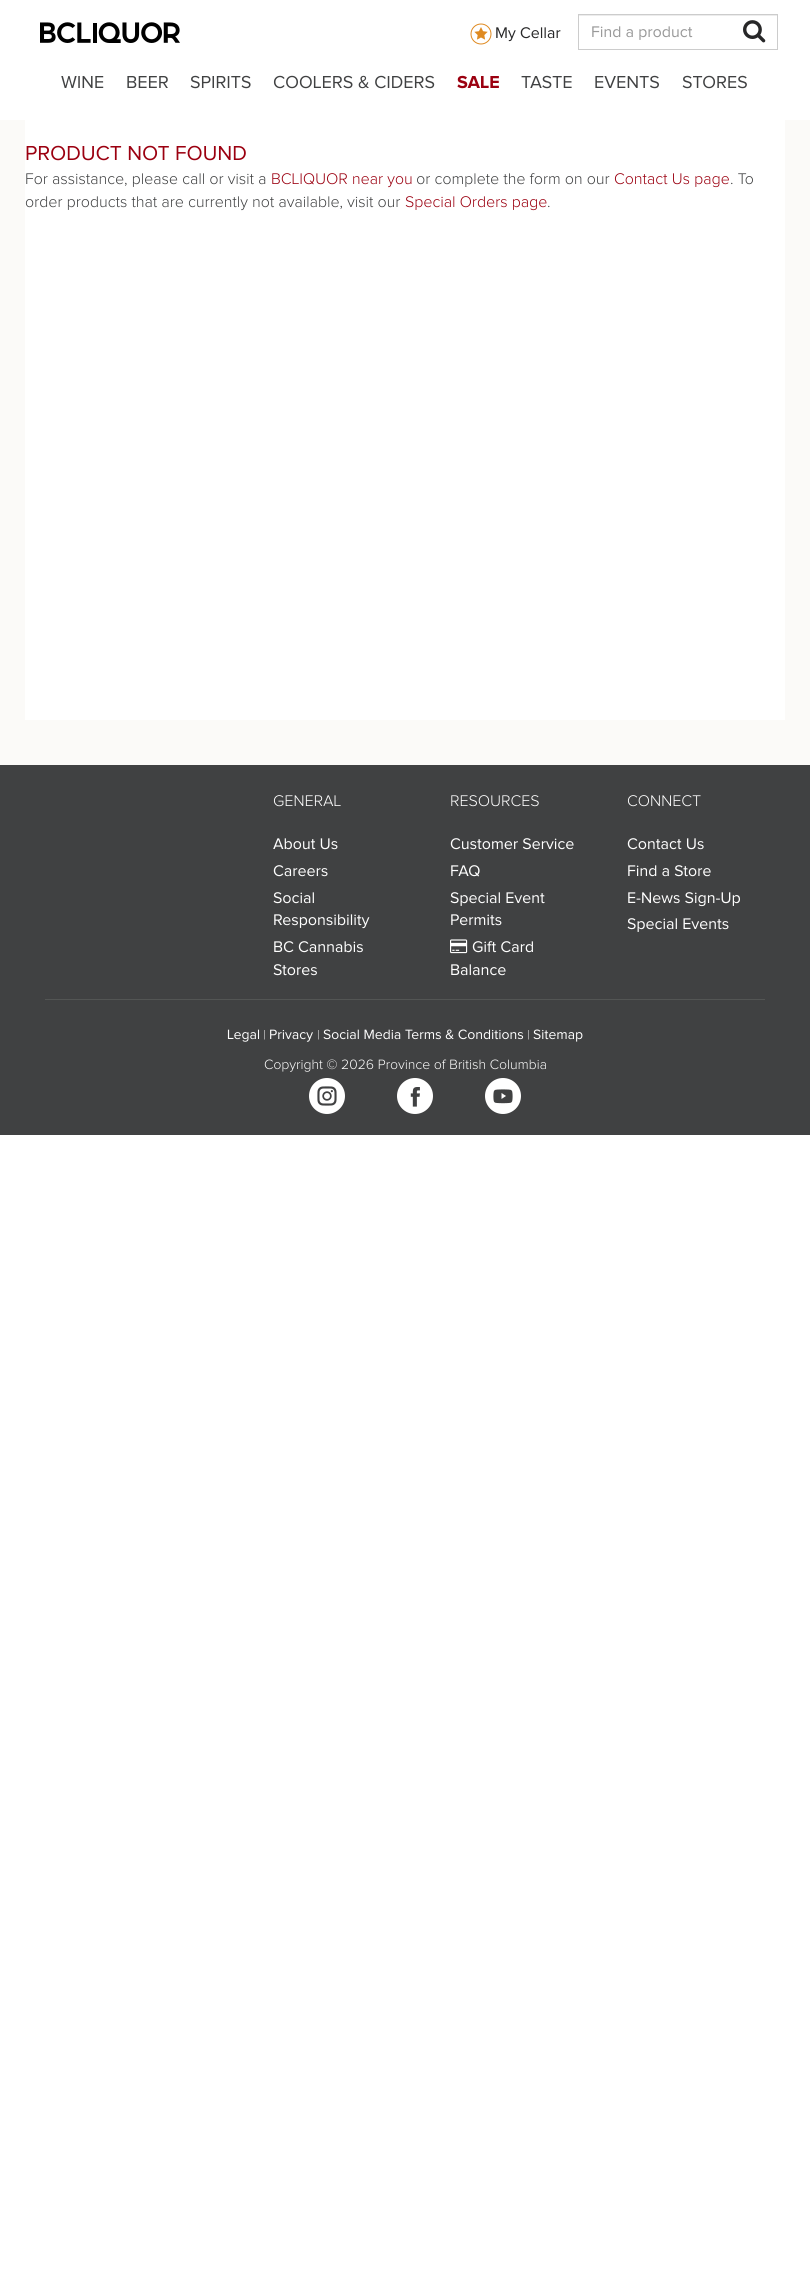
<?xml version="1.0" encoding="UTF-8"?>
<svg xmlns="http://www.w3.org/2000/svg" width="810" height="2282">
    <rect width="100%" height="100%" fill="#FFFFFF"/>
    <rect x="0" y="120" width="810" height="645" fill="#FBFAF8"/>
    <image x="40" y="22" width="140" height="21" href="img_01.png"/>
    <image x="470" y="23" width="22" height="22" href="img_02.png"/>
    <image x="496" y="27" width="65" height="15" href="img_03.png"/>
    <rect x="579" y="15" width="198" height="1" fill="#ECECEC"/>
    <rect x="578.5" y="14.5" width="199" height="35" fill="none" stroke="#CCCCCC"/>
    <image x="592" y="26" width="101" height="14" href="img_04.png"/>
    <image x="743" y="20" width="23" height="23" href="img_05.png"/>
    <image x="61" y="76" width="43" height="12" href="img_06.png"/>
    <image x="127" y="76" width="41" height="12" href="img_07.png"/>
    <image x="190" y="75" width="61" height="14" href="img_08.png"/>
    <image x="273" y="75" width="162" height="14" href="img_09.png"/>
    <image x="457" y="75" width="42" height="14" href="img_10.png"/>
    <image x="521" y="75" width="51" height="14" href="img_11.png"/>
    <image x="595" y="75" width="64" height="14" href="img_12.png"/>
    <image x="682" y="75" width="65" height="14" href="img_13.png"/>
    <rect x="25" y="120" width="760" height="600" fill="#FFFFFF"/>
    <image x="26" y="145" width="220" height="16" href="img_14.png"/>
    <image x="26" y="173" width="240" height="14" href="img_15.png"/>
    <image x="272" y="173" width="140" height="15" href="img_16.png"/>
    <image x="417" y="173" width="193" height="14" href="img_17.png"/>
    <image x="614" y="173" width="115" height="15" href="img_18.png"/>
    <image x="731" y="173" width="22" height="12" href="img_19.png"/>
    <image x="25" y="196" width="376" height="15" href="img_20.png"/>
    <image x="405" y="196" width="142" height="15" href="img_21.png"/>
    <image x="548" y="205" width="2" height="3" href="img_22.png"/>
    <rect x="0" y="765" width="810" height="370" fill="#404142"/>
    <image x="273" y="795" width="68" height="12" href="img_23.png"/>
    <image x="273" y="838" width="65" height="12" href="img_24.png"/>
    <image x="273" y="865" width="55" height="12" href="img_25.png"/>
    <image x="273" y="892" width="41" height="12" href="img_26.png"/>
    <image x="274" y="914" width="96" height="15" href="img_27.png"/>
    <image x="274" y="941" width="89" height="12" href="img_28.png"/>
    <image x="273" y="964" width="44" height="12" href="img_29.png"/>
    <image x="451" y="795" width="88" height="12" href="img_30.png"/>
    <image x="450" y="838" width="124" height="12" href="img_31.png"/>
    <image x="451" y="865" width="29" height="12" href="img_32.png"/>
    <image x="450" y="892" width="95" height="14" href="img_33.png"/>
    <image x="451" y="914" width="51" height="12" href="img_34.png"/>
    <image x="450" y="939" width="18" height="15" href="img_35.png"/>
    <image x="472" y="941" width="61" height="12" href="img_36.png"/>
    <image x="451" y="964" width="55" height="12" href="img_37.png"/>
    <image x="627" y="795" width="74" height="12" href="img_38.png"/>
    <image x="627" y="838" width="77" height="12" href="img_39.png"/>
    <image x="628" y="865" width="83" height="12" href="img_40.png"/>
    <image x="628" y="892" width="112" height="15" href="img_41.png"/>
    <image x="627" y="918" width="102" height="14" href="img_42.png"/>
    <rect x="45" y="999" width="720" height="1" fill="#535554"/>
    <image x="227" y="1029" width="33" height="13" href="img_43.png"/>
    <path d="M 264.5 1039.5 H 264 V 1030 H 264.5 Z" fill="#FFFFFF"/>
    <image x="270" y="1029" width="43" height="13" href="img_44.png"/>
    <path d="M 318.5 1039.5 H 318 V 1030 H 318.5 Z" fill="#FFFFFF"/>
    <image x="323" y="1029" width="201" height="11" href="img_45.png"/>
    <path d="M 528.5 1039.5 H 528 V 1030 H 528.5 Z" fill="#FFFFFF"/>
    <image x="533" y="1029" width="50" height="13" href="img_46.png"/>
    <image x="264" y="1059" width="282" height="13" href="img_47.png"/>
    <image x="309" y="1078" width="36" height="36" href="img_48.png"/>
    <image x="397" y="1078" width="36" height="36" href="img_49.png"/>
    <image x="485" y="1078" width="36" height="36" href="img_50.png"/>
</svg>
